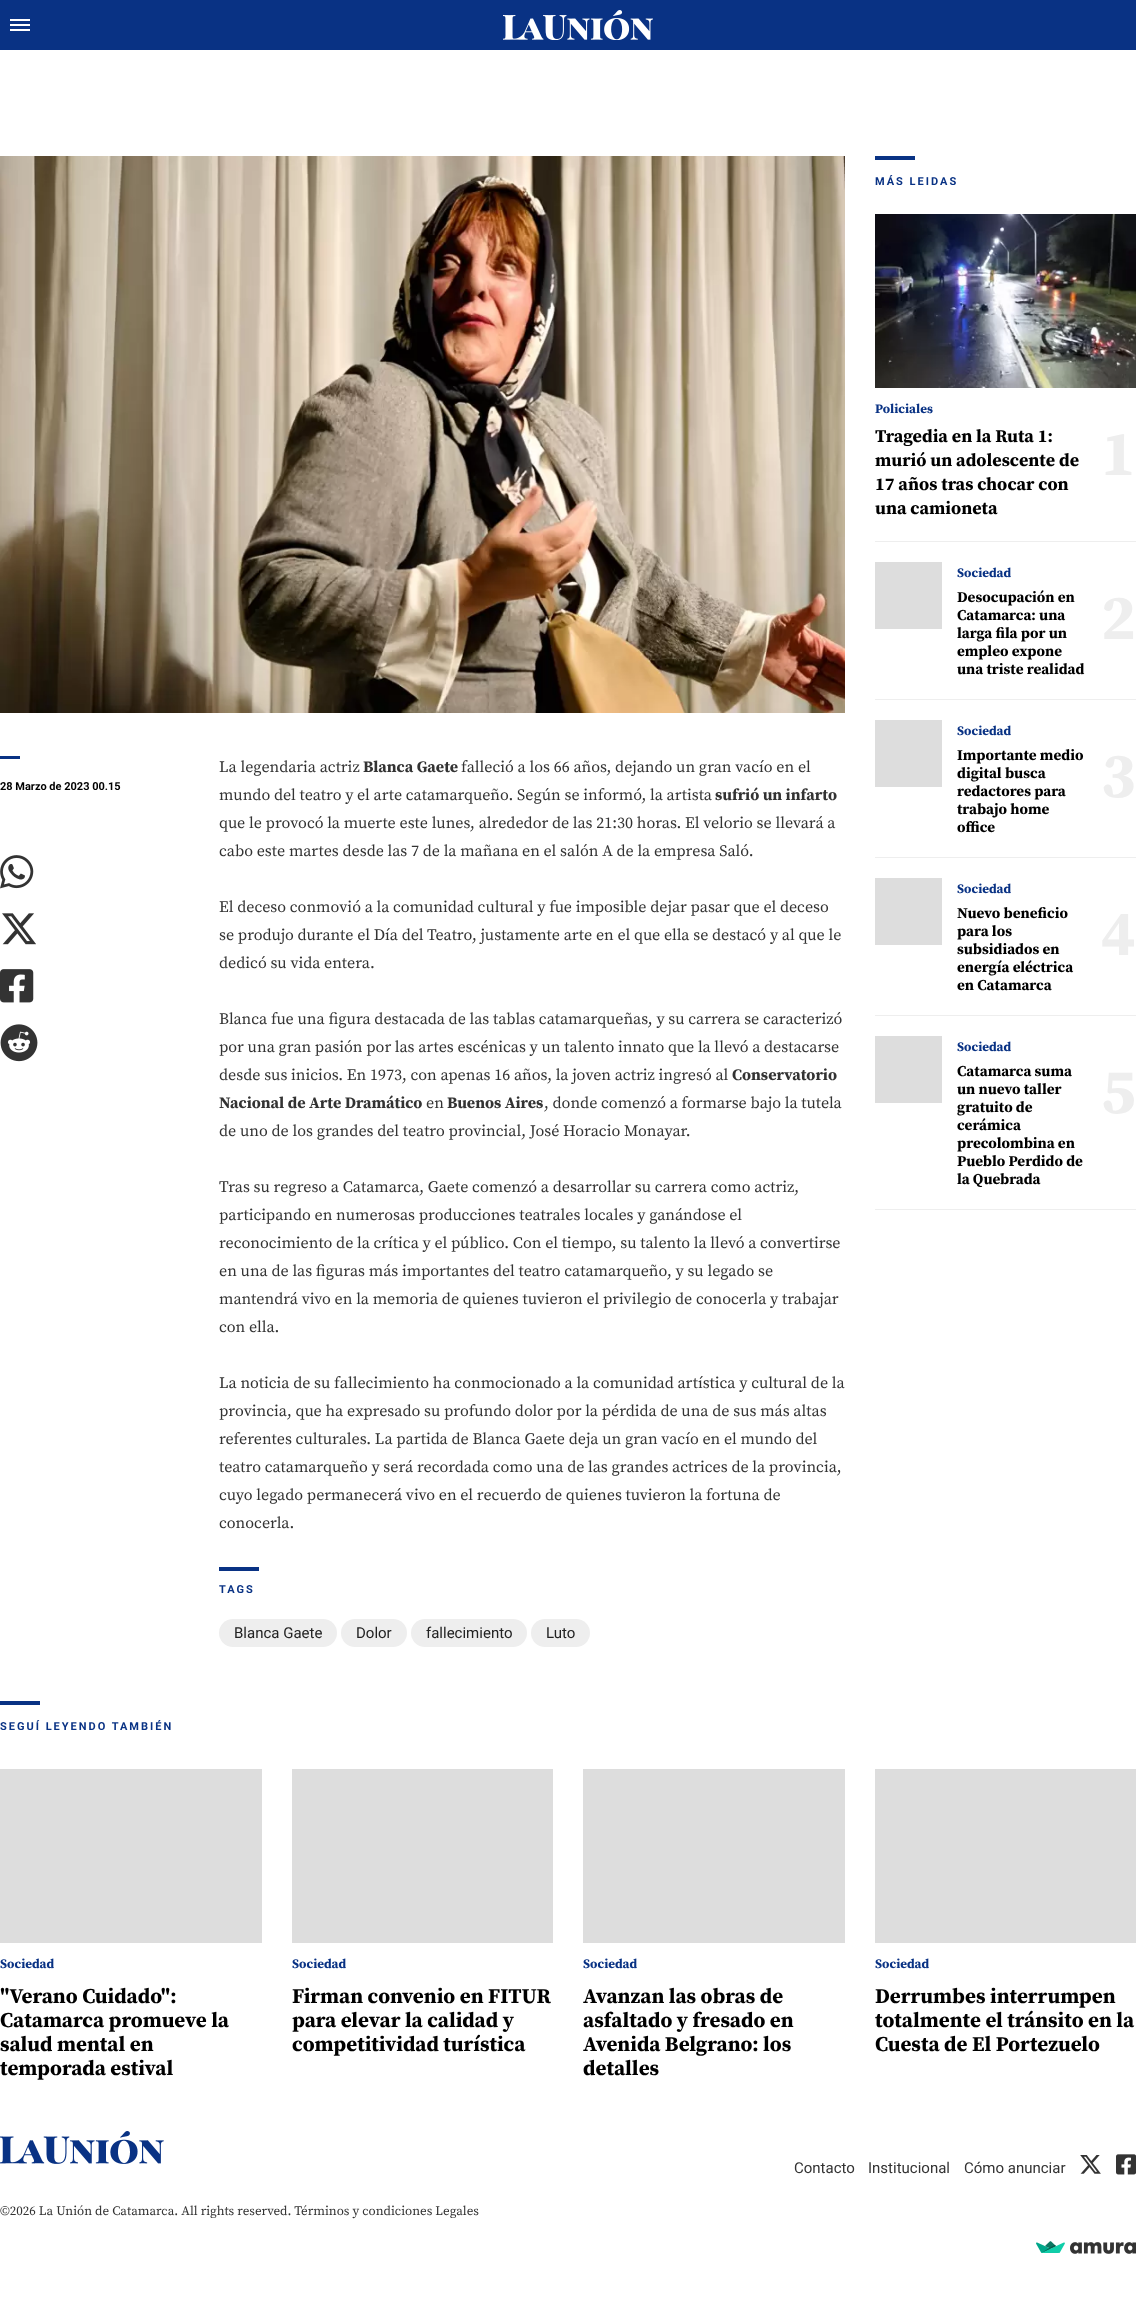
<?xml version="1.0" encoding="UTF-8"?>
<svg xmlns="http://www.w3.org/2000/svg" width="1136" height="2319">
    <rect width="100%" height="100%" fill="#FFFFFF"/>
    <rect x="0" y="0" width="1136" height="50" fill="#093284"/>
    <rect x="10" y="19" width="20" height="2" fill="#FFFFFF"/>
    <rect x="10" y="24" width="20" height="2" fill="#FFFFFF"/>
    <rect x="10" y="29" width="20" height="2" fill="#FFFFFF"/>
    <image x="503" y="10" width="150" height="30" href="img_01.png"/>
    <image x="0" y="156" width="845" height="557" href="img_02.png"/>
    <rect x="0" y="756" width="20" height="3" fill="#093284"/>
    <text x="0" y="790" font-family="Roboto" font-size="11" font-weight="700" fill="#000000">28 Marzo de 2023 00.15</text>
    <image x="0" y="855" width="34" height="34" href="img_03.png"/>
    <image x="2" y="913" width="34" height="32" href="img_04.png"/>
    <image x="0" y="969" width="34" height="34" href="img_05.png"/>
    <image x="0" y="1024" width="38" height="38" href="img_06.png"/>
    <text x="219" y="772" font-family="Source Serif Pro" font-size="16" fill="#333333">La legendaria actriz</text>
    <text x="363" y="772" font-family="Source Serif Pro" font-size="16" font-weight="700" fill="#333333">Blanca Gaete</text>
    <text x="461" y="772" font-family="Source Serif Pro" font-size="16" fill="#333333">falleció a los 66 años, dejando un gran vacío en el</text>
    <text x="219" y="800" font-family="Source Serif Pro" font-size="16" fill="#333333">mundo del teatro y el arte catamarqueño. Según se informó, la artista</text>
    <text x="715" y="800" font-family="Source Serif Pro" font-size="16" font-weight="700" fill="#333333">sufrió un infarto</text>
    <text font-family="Source Serif Pro" font-size="16" fill="#333333">
        <tspan x="219" y="828">que le provocó la muerte este lunes, alrededor de las 21:30 horas. El velorio se llevará a</tspan>
        <tspan x="219" y="856">cabo este martes desde las 7 de la mañana en el salón A de la empresa Saló.</tspan>
    </text>
    <text font-family="Source Serif Pro" font-size="16" fill="#333333">
        <tspan x="219" y="912">El deceso conmovió a la comunidad cultural y fue imposible dejar pasar que el deceso</tspan>
        <tspan x="219" y="940">se produjo durante el Día del Teatro, justamente arte en el que ella se destacó y al que le</tspan>
        <tspan x="219" y="968">dedicó su vida entera.</tspan>
    </text>
    <text font-family="Source Serif Pro" font-size="16" fill="#333333">
        <tspan x="219" y="1024">Blanca fue una figura destacada de las tablas catamarqueñas, y su carrera se caracterizó</tspan>
        <tspan x="219" y="1052">por una gran pasión por las artes escénicas y un talento innato que la llevó a destacarse</tspan>
        <tspan x="219" y="1080">desde sus inicios. En 1973, con apenas 16 años, la joven actriz ingresó al</tspan>
    </text>
    <text x="732" y="1080" font-family="Source Serif Pro" font-size="16" font-weight="700" fill="#333333">Conservatorio</text>
    <text x="219" y="1108" font-family="Source Serif Pro" font-size="16" font-weight="700" fill="#333333">Nacional de Arte Dramático</text>
    <text x="426" y="1108" font-family="Source Serif Pro" font-size="16" fill="#333333">en</text>
    <text x="447" y="1108" font-family="Source Serif Pro" font-size="16" font-weight="700" fill="#333333">Buenos Aires</text>
    <text x="544" y="1108" font-family="Source Serif Pro" font-size="16" fill="#333333">, donde comenzó a formarse bajo la tutela</text>
    <text x="219" y="1136" font-family="Source Serif Pro" font-size="16" fill="#333333">de uno de los grandes del teatro provincial, José Horacio Monayar.</text>
    <text font-family="Source Serif Pro" font-size="16" fill="#333333">
        <tspan x="219" y="1192">Tras su regreso a Catamarca, Gaete comenzó a desarrollar su carrera como actriz,</tspan>
        <tspan x="219" y="1220">participando en numerosas producciones teatrales locales y ganándose el</tspan>
        <tspan x="219" y="1248">reconocimiento de la crítica y el público. Con el tiempo, su talento la llevó a convertirse</tspan>
        <tspan x="219" y="1276">en una de las figuras más importantes del teatro catamarqueño, y su legado se</tspan>
        <tspan x="219" y="1304">mantendrá vivo en la memoria de quienes tuvieron el privilegio de conocerla y trabajar</tspan>
        <tspan x="219" y="1332">con ella.</tspan>
    </text>
    <text font-family="Source Serif Pro" font-size="16" fill="#333333">
        <tspan x="219" y="1388">La noticia de su fallecimiento ha conmocionado a la comunidad artística y cultural de la</tspan>
        <tspan x="219" y="1416">provincia, que ha expresado su profundo dolor por la pérdida de una de sus más altas</tspan>
        <tspan x="219" y="1444">referentes culturales. La partida de Blanca Gaete deja un gran vacío en el mundo del</tspan>
        <tspan x="219" y="1472">teatro catamarqueño y será recordada como una de las grandes actrices de la provincia,</tspan>
        <tspan x="219" y="1500">cuyo legado permanecerá vivo en el recuerdo de quienes tuvieron la fortuna de</tspan>
        <tspan x="219" y="1528">conocerla.</tspan>
    </text>
    <rect x="219" y="1567" width="40" height="4" fill="#093284"/>
    <text x="219" y="1593" font-family="Roboto" font-size="11" font-weight="700" letter-spacing="2" fill="#093284">TAGS</text>
    <rect x="219" y="1619" width="118" height="28" rx="14" fill="#EEEEEE"/>
    <text x="234" y="1638" font-family="Roboto" font-size="15" fill="#222222">Blanca Gaete</text>
    <rect x="341" y="1619" width="66" height="28" rx="14" fill="#EEEEEE"/>
    <text x="356" y="1638" font-family="Roboto" font-size="15" fill="#222222">Dolor</text>
    <rect x="411" y="1619" width="116" height="28" rx="14" fill="#EEEEEE"/>
    <text x="426" y="1638" font-family="Roboto" font-size="15" fill="#222222">fallecimiento</text>
    <rect x="531" y="1619" width="59" height="28" rx="14" fill="#EEEEEE"/>
    <text x="546" y="1638" font-family="Roboto" font-size="15" fill="#222222">Luto</text>
    <rect x="875" y="156" width="40" height="4" fill="#093284"/>
    <text x="875" y="185" font-family="Roboto" font-size="11" font-weight="700" letter-spacing="2" fill="#093284">MÁS LEIDAS</text>
    <rect x="875" y="541" width="261" height="1" fill="#EEEEEE"/>
    <image x="875" y="214" width="261" height="174" href="img_07.png"/>
    <text x="875" y="413" font-family="Source Serif Pro" font-size="13" font-weight="700" fill="#093284">Policiales</text>
    <text font-family="Source Serif Pro" font-size="18" font-weight="700" fill="#000000">
        <tspan x="875" y="442">Tragedia en la Ruta 1:</tspan>
        <tspan x="875" y="466">murió un adolescente de</tspan>
        <tspan x="875" y="490">17 años tras chocar con</tspan>
        <tspan x="875" y="514">una camioneta</tspan>
    </text>
    <text x="1101" y="475" font-family="Source Serif Pro" font-size="64" font-weight="700" fill="#EEEEEE">1</text>
    <rect x="875" y="699" width="261" height="1" fill="#EEEEEE"/>
    <rect x="875" y="562" width="67" height="67" fill="#DDDDDD"/>
    <text x="957" y="577" font-family="Source Serif Pro" font-size="13" font-weight="700" fill="#093284">Sociedad</text>
    <text font-family="Source Serif Pro" font-size="15" font-weight="700" fill="#000000">
        <tspan x="957" y="602">Desocupación en</tspan>
        <tspan x="957" y="620">Catamarca: una</tspan>
        <tspan x="957" y="638">larga fila por un</tspan>
        <tspan x="957" y="656">empleo expone</tspan>
        <tspan x="957" y="674">una triste realidad</tspan>
    </text>
    <text x="1101" y="639" font-family="Source Serif Pro" font-size="64" font-weight="700" fill="#EEEEEE">2</text>
    <rect x="875" y="857" width="261" height="1" fill="#EEEEEE"/>
    <rect x="875" y="720" width="67" height="67" fill="#DDDDDD"/>
    <text x="957" y="735" font-family="Source Serif Pro" font-size="13" font-weight="700" fill="#093284">Sociedad</text>
    <text font-family="Source Serif Pro" font-size="15" font-weight="700" fill="#000000">
        <tspan x="957" y="760">Importante medio</tspan>
        <tspan x="957" y="778">digital busca</tspan>
        <tspan x="957" y="796">redactores para</tspan>
        <tspan x="957" y="814">trabajo home</tspan>
        <tspan x="957" y="832">office</tspan>
    </text>
    <text x="1101" y="797" font-family="Source Serif Pro" font-size="64" font-weight="700" fill="#EEEEEE">3</text>
    <rect x="875" y="1015" width="261" height="1" fill="#EEEEEE"/>
    <rect x="875" y="878" width="67" height="67" fill="#DDDDDD"/>
    <text x="957" y="893" font-family="Source Serif Pro" font-size="13" font-weight="700" fill="#093284">Sociedad</text>
    <text font-family="Source Serif Pro" font-size="15" font-weight="700" fill="#000000">
        <tspan x="957" y="918">Nuevo beneficio</tspan>
        <tspan x="957" y="936">para los</tspan>
        <tspan x="957" y="954">subsidiados en</tspan>
        <tspan x="957" y="972">energía eléctrica</tspan>
        <tspan x="957" y="990">en Catamarca</tspan>
    </text>
    <text x="1101" y="955" font-family="Source Serif Pro" font-size="64" font-weight="700" fill="#EEEEEE">4</text>
    <rect x="875" y="1209" width="261" height="1" fill="#EEEEEE"/>
    <rect x="875" y="1036" width="67" height="67" fill="#DDDDDD"/>
    <text x="957" y="1051" font-family="Source Serif Pro" font-size="13" font-weight="700" fill="#093284">Sociedad</text>
    <text font-family="Source Serif Pro" font-size="15" font-weight="700" fill="#000000">
        <tspan x="957" y="1076">Catamarca suma</tspan>
        <tspan x="957" y="1094">un nuevo taller</tspan>
        <tspan x="957" y="1112">gratuito de</tspan>
        <tspan x="957" y="1130">cerámica</tspan>
        <tspan x="957" y="1148">precolombina en</tspan>
        <tspan x="957" y="1166">Pueblo Perdido de</tspan>
        <tspan x="957" y="1184">la Quebrada</tspan>
    </text>
    <text x="1101" y="1113" font-family="Source Serif Pro" font-size="64" font-weight="700" fill="#EEEEEE">5</text>
    <rect x="0" y="1701" width="40" height="4" fill="#093284"/>
    <text x="0" y="1730" font-family="Roboto" font-size="11" font-weight="700" letter-spacing="2" fill="#093284">SEGUÍ LEYENDO TAMBIÉN</text>
    <rect x="0" y="1769" width="262" height="174" fill="#DDDDDD"/>
    <text x="0" y="1968" font-family="Source Serif Pro" font-size="13" font-weight="700" fill="#093284">Sociedad</text>
    <text font-family="Source Serif Pro" font-size="21" font-weight="700" fill="#000000">
        <tspan x="0" y="2003">"Verano Cuidado":</tspan>
        <tspan x="0" y="2027">Catamarca promueve la</tspan>
        <tspan x="0" y="2051">salud mental en</tspan>
        <tspan x="0" y="2075">temporada estival</tspan>
    </text>
    <rect x="292" y="1769" width="261" height="174" fill="#DDDDDD"/>
    <text x="292" y="1968" font-family="Source Serif Pro" font-size="13" font-weight="700" fill="#093284">Sociedad</text>
    <text font-family="Source Serif Pro" font-size="21" font-weight="700" fill="#000000">
        <tspan x="292" y="2003">Firman convenio en FITUR</tspan>
        <tspan x="292" y="2027">para elevar la calidad y</tspan>
        <tspan x="292" y="2051">competitividad turística</tspan>
    </text>
    <rect x="583" y="1769" width="262" height="174" fill="#DDDDDD"/>
    <text x="583" y="1968" font-family="Source Serif Pro" font-size="13" font-weight="700" fill="#093284">Sociedad</text>
    <text font-family="Source Serif Pro" font-size="21" font-weight="700" fill="#000000">
        <tspan x="583" y="2003">Avanzan las obras de</tspan>
        <tspan x="583" y="2027">asfaltado y fresado en</tspan>
        <tspan x="583" y="2051">Avenida Belgrano: los</tspan>
        <tspan x="583" y="2075">detalles</tspan>
    </text>
    <rect x="875" y="1769" width="261" height="174" fill="#DDDDDD"/>
    <text x="875" y="1968" font-family="Source Serif Pro" font-size="13" font-weight="700" fill="#093284">Sociedad</text>
    <text font-family="Source Serif Pro" font-size="21" font-weight="700" fill="#000000">
        <tspan x="875" y="2003">Derrumbes interrumpen</tspan>
        <tspan x="875" y="2027">totalmente el tránsito en la</tspan>
        <tspan x="875" y="2051">Cuesta de El Portezuelo</tspan>
    </text>
    <text x="794" y="2173" font-family="Roboto" font-size="15" fill="#333333">Contacto</text>
    <text x="868" y="2173" font-family="Roboto" font-size="15" fill="#333333">Institucional</text>
    <text x="964" y="2173" font-family="Roboto" font-size="15" fill="#333333">Cómo anunciar</text>
    <image x="1080" y="2155" width="21" height="19" href="img_08.png"/>
    <image x="1116" y="2154" width="20" height="21" href="img_09.png"/>
    <image x="0" y="2131" width="164" height="33" href="img_10.png"/>
    <text x="0" y="2215" font-family="Source Serif Pro" font-size="13" fill="#333333">©2026 La Unión de Catamarca. All rights reserved. Términos y condiciones Legales</text>
    <image x="1036" y="2241" width="100" height="13" href="img_11.png"/>
</svg>
